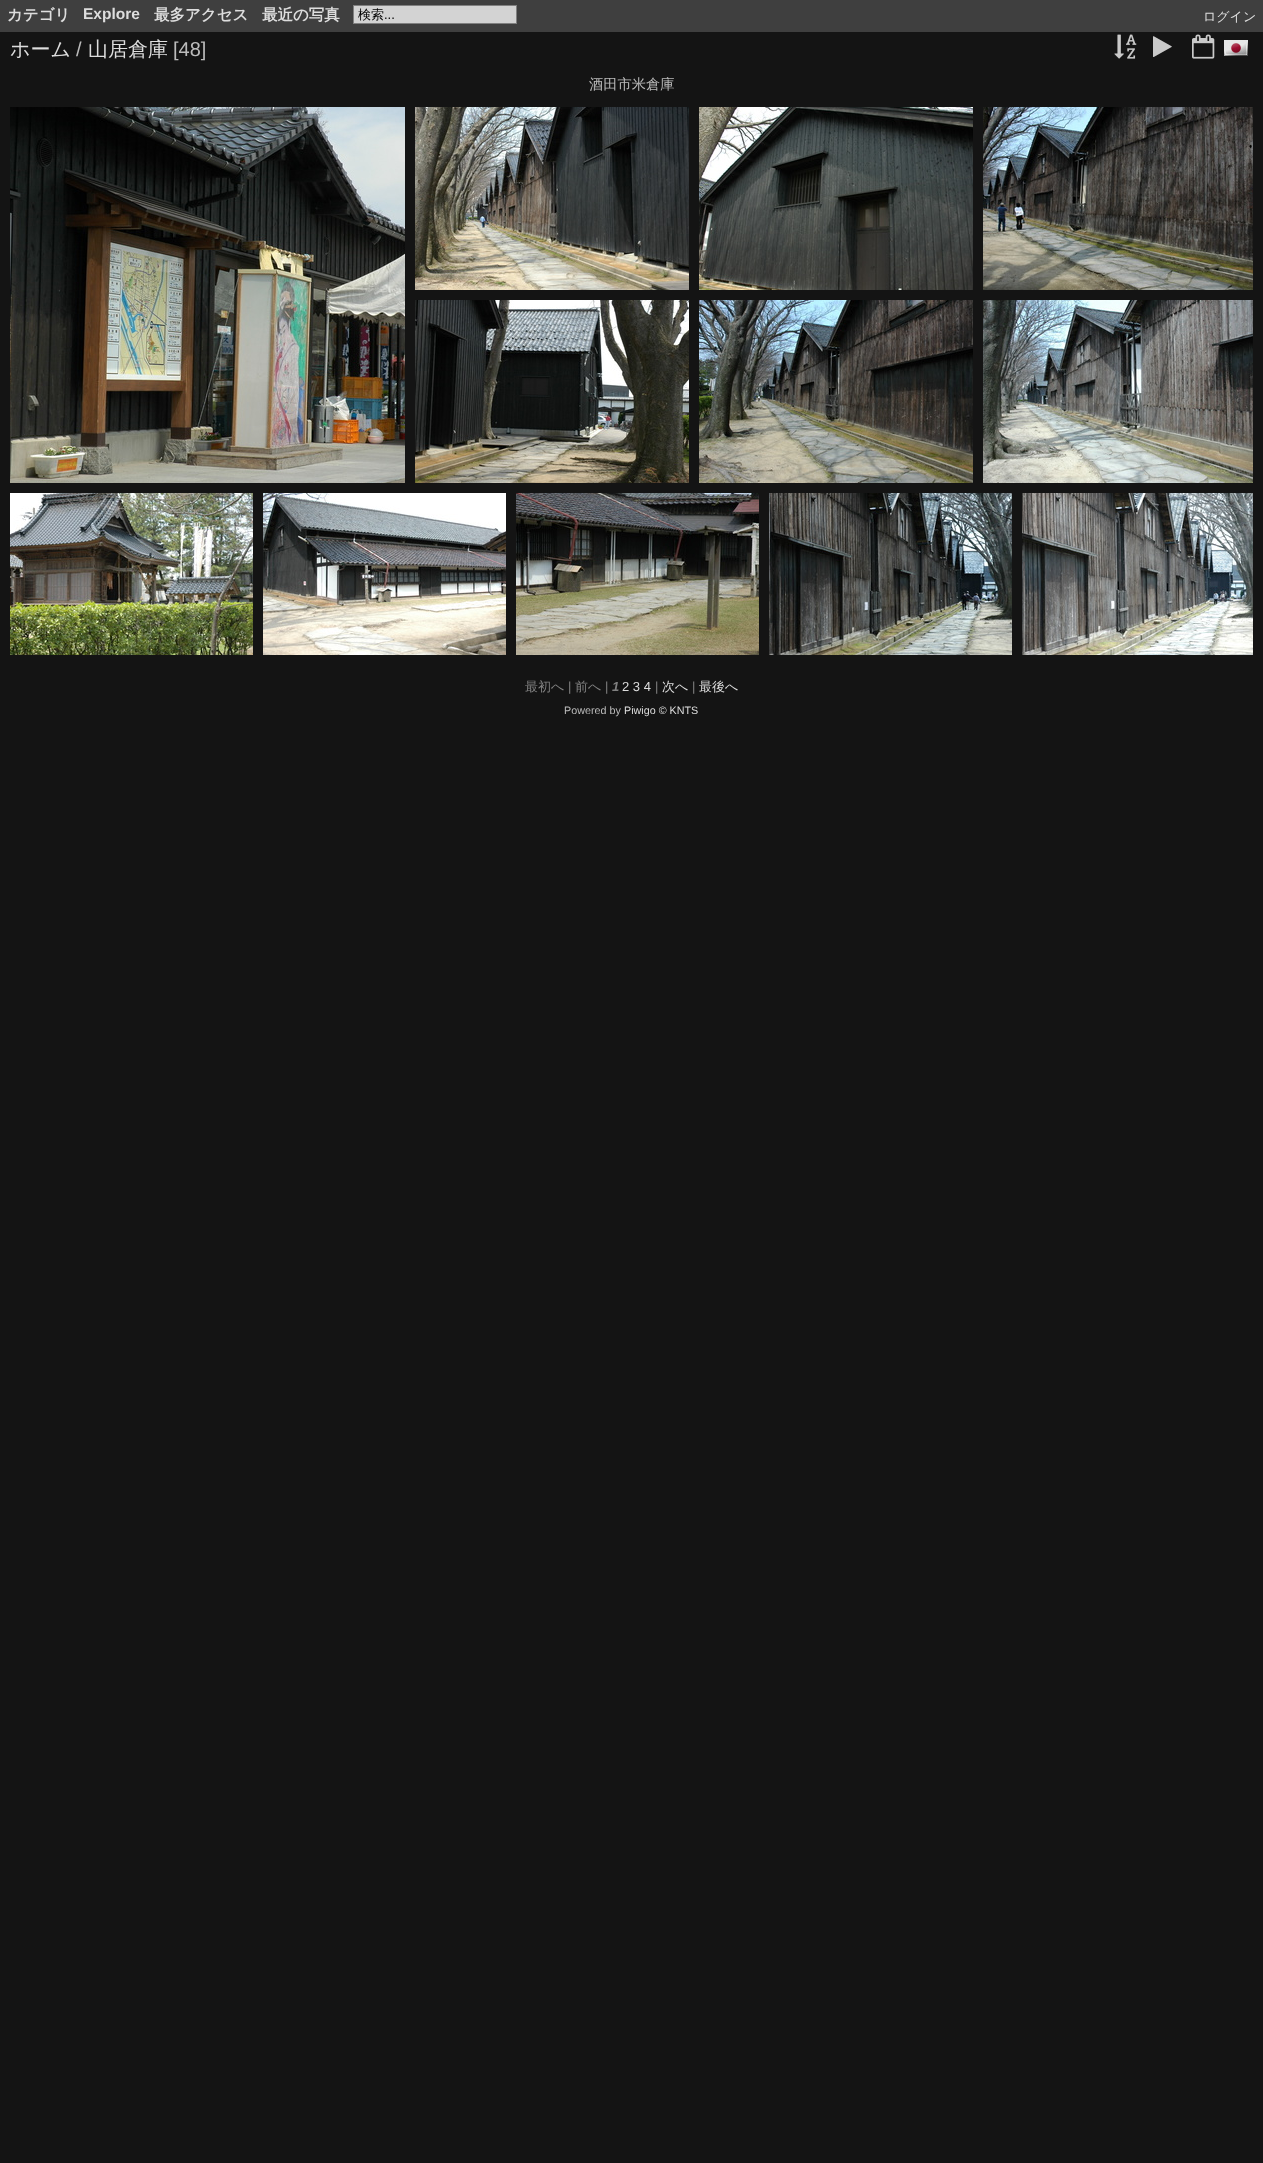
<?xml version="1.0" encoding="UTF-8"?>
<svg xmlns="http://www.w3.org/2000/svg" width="1263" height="2163">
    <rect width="100%" height="100%" fill="#141414"/>
    <rect x="0" y="0" width="1263" height="32" fill="#3F3F3F"/>
    <text x="7" y="20" font-family="WenQuanYi Zen Hei" font-size="15.5" font-weight="700" fill="#DDDDDD">カテゴリ</text>
    <text x="83" y="19" font-family="Liberation Sans" font-size="15.5" font-weight="700" fill="#DDDDDD">Explore</text>
    <text x="154" y="20" font-family="WenQuanYi Zen Hei" font-size="15.5" font-weight="700" fill="#DDDDDD">最多アクセス</text>
    <text x="262" y="20" font-family="WenQuanYi Zen Hei" font-size="15.5" font-weight="700" fill="#DDDDDD">最近の写真</text>
    <rect x="353.5" y="5.5" width="163" height="18" fill="#D3D3D3" stroke="#808080"/>
    <text x="358" y="19" font-family="WenQuanYi Zen Hei" font-size="13" font-weight="500" fill="#000000">検索</text>
    <text x="384" y="19" font-family="Liberation Sans" font-size="13" fill="#000000">...</text>
    <text x="1203" y="21" font-family="WenQuanYi Zen Hei" font-size="13" font-weight="500" fill="#DDDDDD">ログイン</text>
    <text x="10" y="56" font-family="WenQuanYi Zen Hei" font-size="20" font-weight="500" fill="#DDDDDD">ホーム</text>
    <text x="76" y="56" font-family="Liberation Sans" font-size="20" fill="#BBBBBB">/</text>
    <text x="88" y="56" font-family="WenQuanYi Zen Hei" font-size="20" font-weight="500" fill="#DDDDDD">山居倉庫</text>
    <text x="173" y="56" font-family="Liberation Sans" font-size="20" fill="#BBBBBB">[48]</text>
    <image x="1114" y="34" width="23" height="25" href="img_01.png"/>
    <text x="1153" y="55" font-family="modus" font-size="24" fill="#C9C9C9">▶</text>
    <image x="1192" y="34" width="23" height="25" href="img_02.png"/>
    <image x="1224" y="40" width="24" height="16" href="img_03.png"/>
    <text x="589" y="89" font-family="WenQuanYi Zen Hei" font-size="14.25" font-weight="500" fill="#BBBBBB">酒田市米倉庫</text>
    <image x="10" y="107" width="395" height="376" href="img_04.png"/>
    <image x="415" y="107" width="274" height="183" href="img_05.png"/>
    <image x="699" y="107" width="274" height="183" href="img_06.png"/>
    <image x="983" y="107" width="270" height="183" href="img_07.png"/>
    <image x="415" y="300" width="274" height="183" href="img_08.png"/>
    <image x="699" y="300" width="274" height="183" href="img_09.png"/>
    <image x="983" y="300" width="270" height="183" href="img_10.png"/>
    <image x="10" y="493" width="243" height="162" href="img_11.png"/>
    <image x="263" y="493" width="243" height="162" href="img_12.png"/>
    <image x="516" y="493" width="243" height="162" href="img_13.png"/>
    <image x="769" y="493" width="243" height="162" href="img_14.png"/>
    <image x="1022" y="493" width="231" height="162" href="img_15.png"/>
    <text x="525" y="691" font-family="WenQuanYi Zen Hei" font-size="13" font-weight="500" fill="#808080">最初へ</text>
    <text x="568" y="691" font-family="Liberation Sans" font-size="13" fill="#808080">|</text>
    <text x="575" y="691" font-family="WenQuanYi Zen Hei" font-size="13" font-weight="500" fill="#808080">前へ</text>
    <text x="605" y="691" font-family="Liberation Sans" font-size="13" fill="#808080">|</text>
    <text x="612" y="691" font-family="Liberation Sans" font-size="13" font-weight="700" font-style="italic" fill="#808080">1</text>
    <text x="622" y="691" font-family="Liberation Sans" font-size="13" fill="#DDDDDD">2 3 4</text>
    <text x="655" y="691" font-family="Liberation Sans" font-size="13" fill="#808080">|</text>
    <text x="662" y="691" font-family="WenQuanYi Zen Hei" font-size="13" font-weight="500" fill="#DDDDDD">次へ</text>
    <text x="692" y="691" font-family="Liberation Sans" font-size="13" fill="#808080">|</text>
    <text x="699" y="691" font-family="WenQuanYi Zen Hei" font-size="13" font-weight="500" fill="#DDDDDD">最後へ</text>
    <text x="564" y="714" font-family="Liberation Sans" font-size="10.75" fill="#BBBBBB">Powered by</text>
    <text x="624" y="714" font-family="Liberation Sans" font-size="10.75" fill="#DDDDDD">Piwigo © KNTS</text>
</svg>
